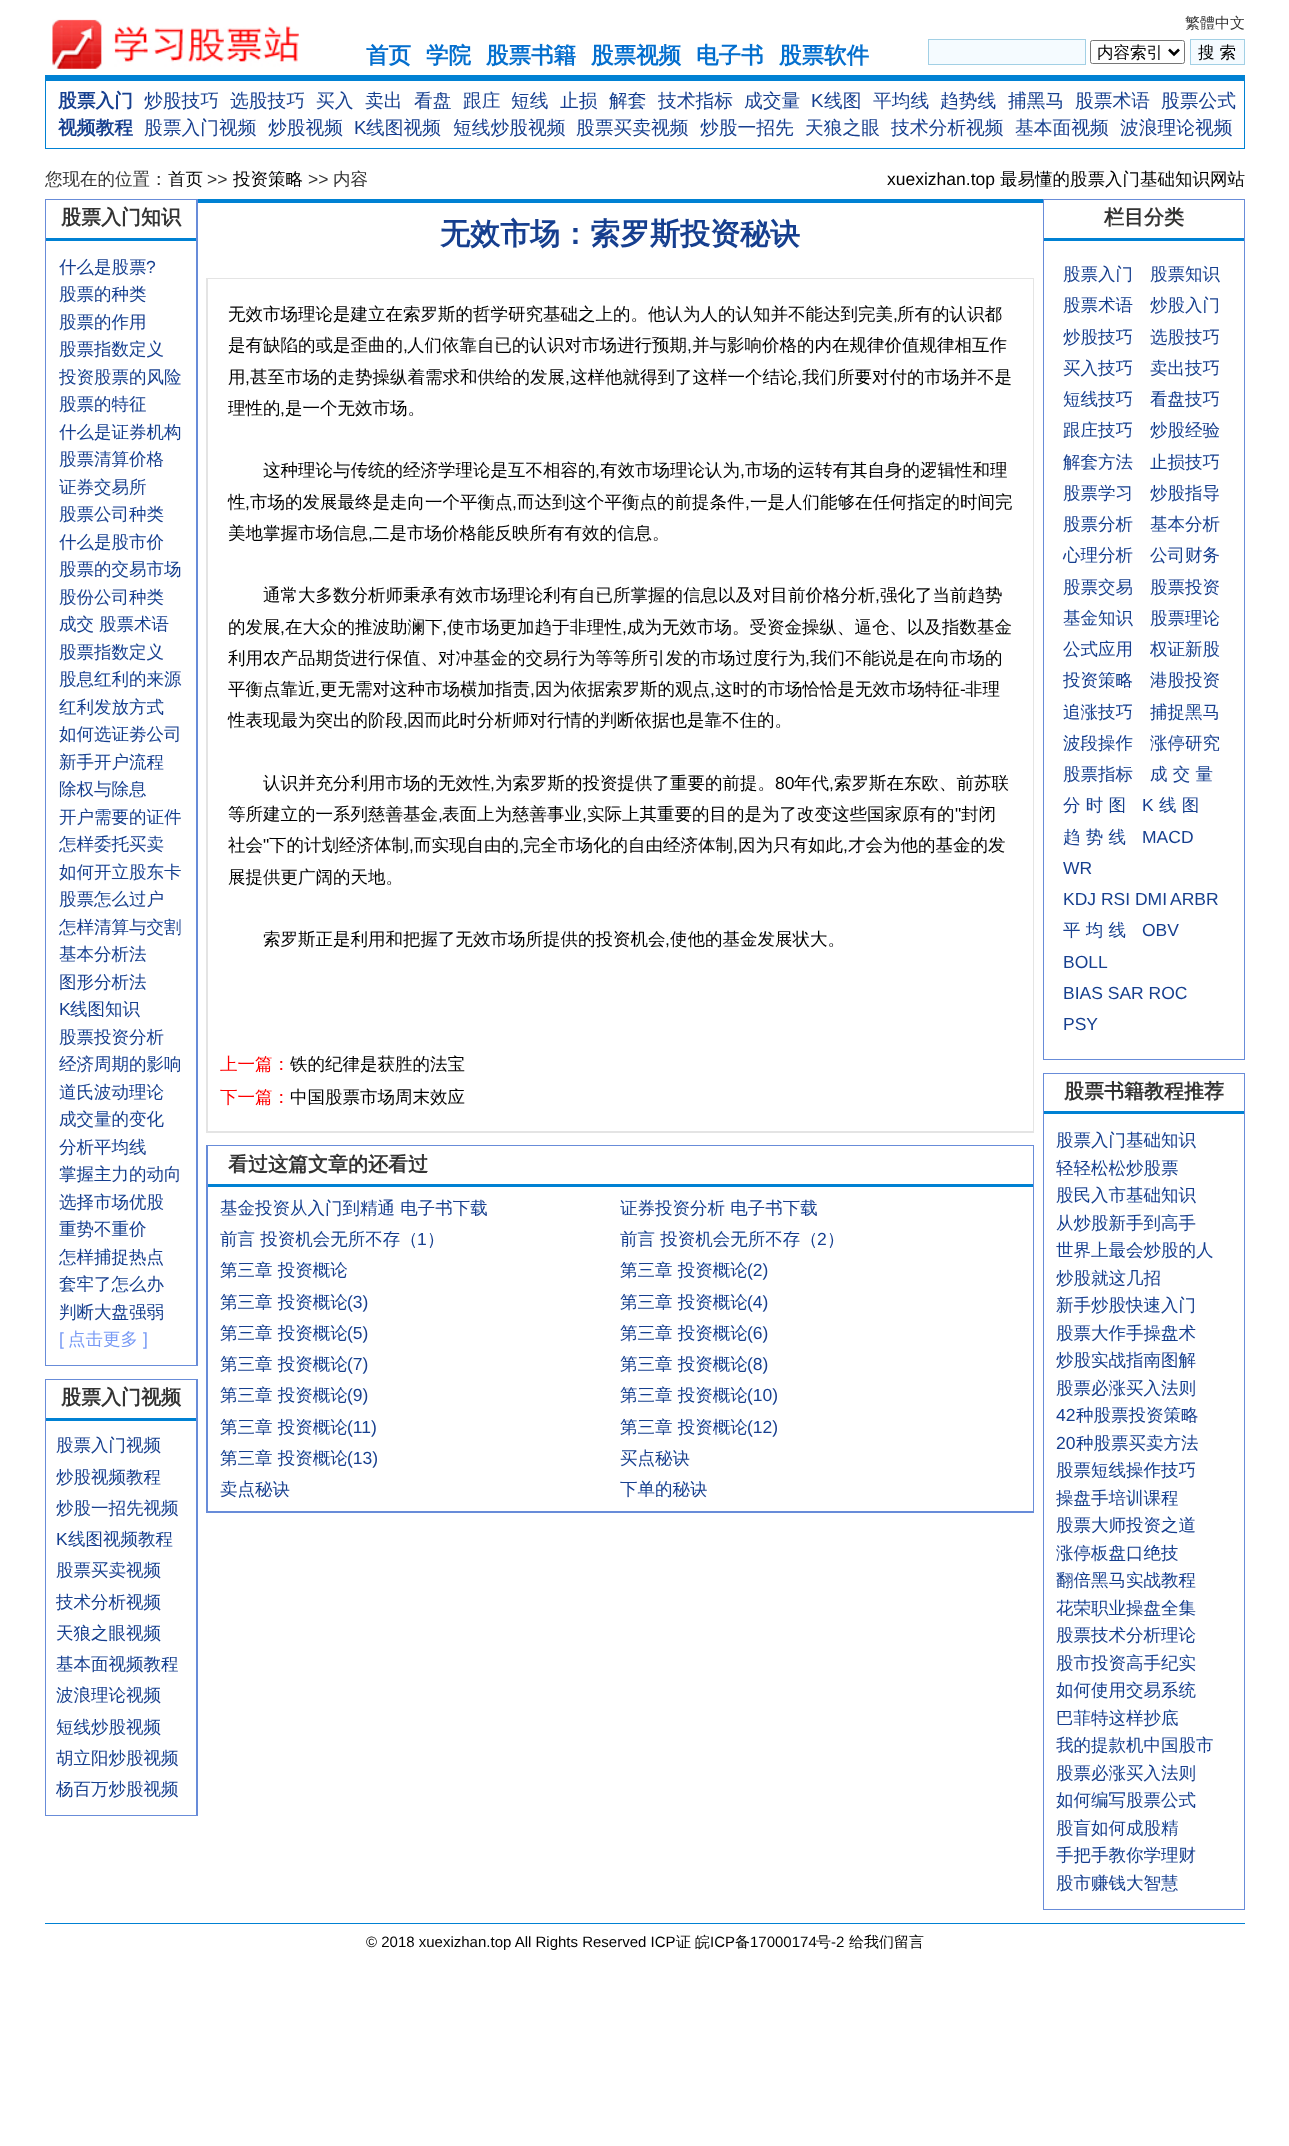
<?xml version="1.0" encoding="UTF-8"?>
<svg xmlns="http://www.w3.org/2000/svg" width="1289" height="2146">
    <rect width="100%" height="100%" fill="#FFFFFF"/>
    <image x="52" y="19" width="247" height="50" href="img_01.png"/>
    <text x="1185" y="28" font-family="WenQuanYi Zen Hei" font-size="15" font-weight="500" fill="#333333">繁體中文</text>
    <text x="366" y="63" font-family="WenQuanYi Zen Hei" font-size="22.5" font-weight="700" fill="#046FCE">首页</text>
    <text x="426" y="63" font-family="WenQuanYi Zen Hei" font-size="22.5" font-weight="700" fill="#046FCE">学院</text>
    <text x="486" y="63" font-family="WenQuanYi Zen Hei" font-size="22.5" font-weight="700" fill="#046FCE">股票书籍</text>
    <text x="591" y="63" font-family="WenQuanYi Zen Hei" font-size="22.5" font-weight="700" fill="#046FCE">股票视频</text>
    <text x="696" y="63" font-family="WenQuanYi Zen Hei" font-size="22.5" font-weight="700" fill="#046FCE">电子书</text>
    <text x="779" y="63" font-family="WenQuanYi Zen Hei" font-size="22.5" font-weight="700" fill="#046FCE">股票软件</text>
    <rect x="928.5" y="39.5" width="157" height="25" fill="#F5FBFF" stroke="#A2D0E5"/>
    <rect x="1090.5" y="40.5" width="94" height="23" rx="2" fill="none" stroke="#767676"/>
    <path d="M 1169 49.5 L 1174 54.5 L 1179 49.5" fill="none" stroke="#000000" stroke-width="2.5"/>
    <text x="1097" y="58" font-family="WenQuanYi Zen Hei" font-size="16.5" font-weight="500" fill="#000000">内容索引</text>
    <rect x="1190.5" y="39.5" width="54" height="25" fill="#F5FBFF" stroke="#A2D0E5"/>
    <text x="1198" y="58" font-family="WenQuanYi Zen Hei" font-size="16.5" font-weight="500" fill="#000000">搜 索</text>
    <rect x="45" y="75" width="1200" height="74" fill="#0081D3"/>
    <rect x="46" y="81" width="1198" height="67" fill="#FFFFFF"/>
    <text x="58" y="107" font-family="WenQuanYi Zen Hei" font-size="18.75" font-weight="700" fill="#163F8F">股票入门</text>
    <text x="144" y="107" font-family="WenQuanYi Zen Hei" font-size="18.75" font-weight="500" fill="#163F8F">炒股技巧</text>
    <text x="230" y="107" font-family="WenQuanYi Zen Hei" font-size="18.75" font-weight="500" fill="#163F8F">选股技巧</text>
    <text x="316" y="107" font-family="WenQuanYi Zen Hei" font-size="18.75" font-weight="500" fill="#163F8F">买入</text>
    <text x="365" y="107" font-family="WenQuanYi Zen Hei" font-size="18.75" font-weight="500" fill="#163F8F">卖出</text>
    <text x="414" y="107" font-family="WenQuanYi Zen Hei" font-size="18.75" font-weight="500" fill="#163F8F">看盘</text>
    <text x="463" y="107" font-family="WenQuanYi Zen Hei" font-size="18.75" font-weight="500" fill="#163F8F">跟庄</text>
    <text x="511" y="107" font-family="WenQuanYi Zen Hei" font-size="18.75" font-weight="500" fill="#163F8F">短线</text>
    <text x="560" y="107" font-family="WenQuanYi Zen Hei" font-size="18.75" font-weight="500" fill="#163F8F">止损</text>
    <text x="609" y="107" font-family="WenQuanYi Zen Hei" font-size="18.75" font-weight="500" fill="#163F8F">解套</text>
    <text x="658" y="107" font-family="WenQuanYi Zen Hei" font-size="18.75" font-weight="500" fill="#163F8F">技术指标</text>
    <text x="744" y="107" font-family="WenQuanYi Zen Hei" font-size="18.75" font-weight="500" fill="#163F8F">成交量</text>
    <text x="811" y="107" font-family="Liberation Sans" font-size="18.75" fill="#163F8F">K</text>
    <text x="824" y="107" font-family="WenQuanYi Zen Hei" font-size="18.75" font-weight="500" fill="#163F8F">线图</text>
    <text x="873" y="107" font-family="WenQuanYi Zen Hei" font-size="18.75" font-weight="500" fill="#163F8F">平均线</text>
    <text x="940" y="107" font-family="WenQuanYi Zen Hei" font-size="18.75" font-weight="500" fill="#163F8F">趋势线</text>
    <text x="1008" y="107" font-family="WenQuanYi Zen Hei" font-size="18.75" font-weight="500" fill="#163F8F">捕黑马</text>
    <text x="1075" y="107" font-family="WenQuanYi Zen Hei" font-size="18.75" font-weight="500" fill="#163F8F">股票术语</text>
    <text x="1161" y="107" font-family="WenQuanYi Zen Hei" font-size="18.75" font-weight="500" fill="#163F8F">股票公式</text>
    <text x="58" y="134" font-family="WenQuanYi Zen Hei" font-size="18.75" font-weight="700" fill="#163F8F">视频教程</text>
    <text x="144" y="134" font-family="WenQuanYi Zen Hei" font-size="18.75" font-weight="500" fill="#163F8F">股票入门视频</text>
    <text x="268" y="134" font-family="WenQuanYi Zen Hei" font-size="18.75" font-weight="500" fill="#163F8F">炒股视频</text>
    <text x="354" y="134" font-family="Liberation Sans" font-size="18.75" fill="#163F8F">K</text>
    <text x="366" y="134" font-family="WenQuanYi Zen Hei" font-size="18.75" font-weight="500" fill="#163F8F">线图视频</text>
    <text x="453" y="134" font-family="WenQuanYi Zen Hei" font-size="18.75" font-weight="500" fill="#163F8F">短线炒股视频</text>
    <text x="576" y="134" font-family="WenQuanYi Zen Hei" font-size="18.75" font-weight="500" fill="#163F8F">股票买卖视频</text>
    <text x="700" y="134" font-family="WenQuanYi Zen Hei" font-size="18.75" font-weight="500" fill="#163F8F">炒股一招先</text>
    <text x="805" y="134" font-family="WenQuanYi Zen Hei" font-size="18.75" font-weight="500" fill="#163F8F">天狼之眼</text>
    <text x="891" y="134" font-family="WenQuanYi Zen Hei" font-size="18.75" font-weight="500" fill="#163F8F">技术分析视频</text>
    <text x="1015" y="134" font-family="WenQuanYi Zen Hei" font-size="18.75" font-weight="500" fill="#163F8F">基本面视频</text>
    <text x="1120" y="134" font-family="WenQuanYi Zen Hei" font-size="18.75" font-weight="500" fill="#163F8F">波浪理论视频</text>
    <text x="45" y="185" font-family="WenQuanYi Zen Hei" font-size="17.5" font-weight="500" fill="#333333">您现在的位置：</text>
    <text x="168" y="185" font-family="WenQuanYi Zen Hei" font-size="17.5" font-weight="500" fill="#000000">首页</text>
    <text x="207" y="185" font-family="Liberation Sans" font-size="17.5" fill="#333333">&gt;&gt;</text>
    <text x="233" y="185" font-family="WenQuanYi Zen Hei" font-size="17.5" font-weight="500" fill="#000000">投资策略</text>
    <text x="308" y="185" font-family="Liberation Sans" font-size="17.5" fill="#333333">&gt;&gt;</text>
    <text x="333" y="185" font-family="WenQuanYi Zen Hei" font-size="17.5" font-weight="500" fill="#333333">内容</text>
    <text x="887" y="185" font-family="Liberation Sans" font-size="17.5" fill="#000000">xuexizhan.top</text>
    <text x="1000" y="185" font-family="WenQuanYi Zen Hei" font-size="17.5" font-weight="500" fill="#000000">最易懂的股票入门基础知识网站</text>
    <rect x="198" y="199" width="845" height="4" fill="#0081D3"/>
    <rect x="45" y="199" width="153" height="1167" fill="#688CD9"/>
    <rect x="46" y="200" width="150" height="1165" fill="#FFFFFF"/>
    <text x="61" y="224" font-family="WenQuanYi Zen Hei" font-size="20" font-weight="700" fill="#333333">股票入门知识</text>
    <rect x="46" y="238" width="150" height="3" fill="#0081D3"/>
    <text x="59" y="273" font-family="WenQuanYi Zen Hei" font-size="17.5" font-weight="500" fill="#163F8F">什么是股票</text>
    <text x="146" y="273" font-family="Liberation Sans" font-size="17.5" fill="#163F8F">?</text>
    <text font-family="WenQuanYi Zen Hei" font-size="17.5" font-weight="500" fill="#163F8F">
        <tspan x="59" y="300">股票的种类</tspan>
        <tspan x="59" y="328">股票的作用</tspan>
        <tspan x="59" y="355">股票指数定义</tspan>
        <tspan x="59" y="383">投资股票的风险</tspan>
        <tspan x="59" y="410">股票的特征</tspan>
        <tspan x="59" y="438">什么是证券机构</tspan>
        <tspan x="59" y="465">股票清算价格</tspan>
        <tspan x="59" y="493">证券交易所</tspan>
        <tspan x="59" y="520">股票公司种类</tspan>
        <tspan x="59" y="548">什么是股市价</tspan>
        <tspan x="59" y="575">股票的交易市场</tspan>
        <tspan x="59" y="603">股份公司种类</tspan>
        <tspan x="59" y="630">成交</tspan>
    </text>
    <text x="99" y="630" font-family="WenQuanYi Zen Hei" font-size="17.5" font-weight="500" fill="#163F8F">股票术语</text>
    <text font-family="WenQuanYi Zen Hei" font-size="17.5" font-weight="500" fill="#163F8F">
        <tspan x="59" y="658">股票指数定义</tspan>
        <tspan x="59" y="685">股息红利的来源</tspan>
        <tspan x="59" y="713">红利发放方式</tspan>
        <tspan x="59" y="740">如何选证劵公司</tspan>
        <tspan x="59" y="768">新手开户流程</tspan>
        <tspan x="59" y="795">除权与除息</tspan>
        <tspan x="59" y="823">开户需要的证件</tspan>
        <tspan x="59" y="850">怎样委托买卖</tspan>
        <tspan x="59" y="878">如何开立股东卡</tspan>
        <tspan x="59" y="905">股票怎么过户</tspan>
        <tspan x="59" y="933">怎样清算与交割</tspan>
        <tspan x="59" y="960">基本分析法</tspan>
        <tspan x="59" y="988">图形分析法</tspan>
    </text>
    <text x="59" y="1015" font-family="Liberation Sans" font-size="17.5" fill="#163F8F">K</text>
    <text x="70" y="1015" font-family="WenQuanYi Zen Hei" font-size="17.5" font-weight="500" fill="#163F8F">线图知识</text>
    <text font-family="WenQuanYi Zen Hei" font-size="17.5" font-weight="500" fill="#163F8F">
        <tspan x="59" y="1043">股票投资分析</tspan>
        <tspan x="59" y="1070">经济周期的影响</tspan>
        <tspan x="59" y="1098">道氏波动理论</tspan>
        <tspan x="59" y="1125">成交量的变化</tspan>
        <tspan x="59" y="1153">分析平均线</tspan>
        <tspan x="59" y="1180">掌握主力的动向</tspan>
        <tspan x="59" y="1208">选择市场优股</tspan>
        <tspan x="59" y="1235">重势不重价</tspan>
        <tspan x="59" y="1263">怎样捕捉热点</tspan>
        <tspan x="59" y="1290">套牢了怎么办</tspan>
        <tspan x="59" y="1318">判断大盘强弱</tspan>
    </text>
    <text x="59" y="1345" font-family="Liberation Sans" font-size="17.5" fill="#789AF5">[</text>
    <text x="68" y="1345" font-family="WenQuanYi Zen Hei" font-size="17.5" font-weight="500" fill="#789AF5">点击更多</text>
    <text x="143" y="1345" font-family="Liberation Sans" font-size="17.5" fill="#789AF5">]</text>
    <rect x="45" y="1379" width="153" height="437" fill="#688CD9"/>
    <rect x="46" y="1380" width="150" height="435" fill="#FFFFFF"/>
    <text x="61" y="1404" font-family="WenQuanYi Zen Hei" font-size="20" font-weight="700" fill="#333333">股票入门视频</text>
    <rect x="46" y="1418" width="150" height="3" fill="#0081D3"/>
    <text font-family="WenQuanYi Zen Hei" font-size="17.5" font-weight="500" fill="#163F8F">
        <tspan x="56" y="1451">股票入门视频</tspan>
        <tspan x="56" y="1483">炒股视频教程</tspan>
        <tspan x="56" y="1514">炒股一招先视频</tspan>
    </text>
    <text x="56" y="1545" font-family="Liberation Sans" font-size="17.5" fill="#163F8F">K</text>
    <text x="68" y="1545" font-family="WenQuanYi Zen Hei" font-size="17.5" font-weight="500" fill="#163F8F">线图视频教程</text>
    <text font-family="WenQuanYi Zen Hei" font-size="17.5" font-weight="500" fill="#163F8F">
        <tspan x="56" y="1576">股票买卖视频</tspan>
        <tspan x="56" y="1608">技术分析视频</tspan>
        <tspan x="56" y="1639">天狼之眼视频</tspan>
        <tspan x="56" y="1670">基本面视频教程</tspan>
        <tspan x="56" y="1701">波浪理论视频</tspan>
        <tspan x="56" y="1733">短线炒股视频</tspan>
        <tspan x="56" y="1764">胡立阳炒股视频</tspan>
        <tspan x="56" y="1795">杨百万炒股视频</tspan>
    </text>
    <rect x="1043" y="199" width="202" height="861" fill="#688CD9"/>
    <rect x="1044" y="200" width="200" height="859" fill="#FFFFFF"/>
    <text x="1104" y="224" font-family="WenQuanYi Zen Hei" font-size="20" font-weight="700" fill="#333333">栏目分类</text>
    <rect x="1044" y="238" width="200" height="3" fill="#0081D3"/>
    <text x="1063" y="280" font-family="WenQuanYi Zen Hei" font-size="17.5" font-weight="500" fill="#163F8F">股票入门</text>
    <text x="1150" y="280" font-family="WenQuanYi Zen Hei" font-size="17.5" font-weight="500" fill="#163F8F">股票知识</text>
    <text x="1063" y="311" font-family="WenQuanYi Zen Hei" font-size="17.5" font-weight="500" fill="#163F8F">股票术语</text>
    <text x="1150" y="311" font-family="WenQuanYi Zen Hei" font-size="17.5" font-weight="500" fill="#163F8F">炒股入门</text>
    <text x="1063" y="343" font-family="WenQuanYi Zen Hei" font-size="17.5" font-weight="500" fill="#163F8F">炒股技巧</text>
    <text x="1150" y="343" font-family="WenQuanYi Zen Hei" font-size="17.5" font-weight="500" fill="#163F8F">选股技巧</text>
    <text x="1063" y="374" font-family="WenQuanYi Zen Hei" font-size="17.5" font-weight="500" fill="#163F8F">买入技巧</text>
    <text x="1150" y="374" font-family="WenQuanYi Zen Hei" font-size="17.5" font-weight="500" fill="#163F8F">卖出技巧</text>
    <text x="1063" y="405" font-family="WenQuanYi Zen Hei" font-size="17.5" font-weight="500" fill="#163F8F">短线技巧</text>
    <text x="1150" y="405" font-family="WenQuanYi Zen Hei" font-size="17.5" font-weight="500" fill="#163F8F">看盘技巧</text>
    <text x="1063" y="436" font-family="WenQuanYi Zen Hei" font-size="17.5" font-weight="500" fill="#163F8F">跟庄技巧</text>
    <text x="1150" y="436" font-family="WenQuanYi Zen Hei" font-size="17.5" font-weight="500" fill="#163F8F">炒股经验</text>
    <text x="1063" y="468" font-family="WenQuanYi Zen Hei" font-size="17.5" font-weight="500" fill="#163F8F">解套方法</text>
    <text x="1150" y="468" font-family="WenQuanYi Zen Hei" font-size="17.5" font-weight="500" fill="#163F8F">止损技巧</text>
    <text x="1063" y="499" font-family="WenQuanYi Zen Hei" font-size="17.5" font-weight="500" fill="#163F8F">股票学习</text>
    <text x="1150" y="499" font-family="WenQuanYi Zen Hei" font-size="17.5" font-weight="500" fill="#163F8F">炒股指导</text>
    <text x="1063" y="530" font-family="WenQuanYi Zen Hei" font-size="17.5" font-weight="500" fill="#163F8F">股票分析</text>
    <text x="1150" y="530" font-family="WenQuanYi Zen Hei" font-size="17.5" font-weight="500" fill="#163F8F">基本分析</text>
    <text x="1063" y="561" font-family="WenQuanYi Zen Hei" font-size="17.5" font-weight="500" fill="#163F8F">心理分析</text>
    <text x="1150" y="561" font-family="WenQuanYi Zen Hei" font-size="17.5" font-weight="500" fill="#163F8F">公司财务</text>
    <text x="1063" y="593" font-family="WenQuanYi Zen Hei" font-size="17.5" font-weight="500" fill="#163F8F">股票交易</text>
    <text x="1150" y="593" font-family="WenQuanYi Zen Hei" font-size="17.5" font-weight="500" fill="#163F8F">股票投资</text>
    <text x="1063" y="624" font-family="WenQuanYi Zen Hei" font-size="17.5" font-weight="500" fill="#163F8F">基金知识</text>
    <text x="1150" y="624" font-family="WenQuanYi Zen Hei" font-size="17.5" font-weight="500" fill="#163F8F">股票理论</text>
    <text x="1063" y="655" font-family="WenQuanYi Zen Hei" font-size="17.5" font-weight="500" fill="#163F8F">公式应用</text>
    <text x="1150" y="655" font-family="WenQuanYi Zen Hei" font-size="17.5" font-weight="500" fill="#163F8F">权证新股</text>
    <text x="1063" y="686" font-family="WenQuanYi Zen Hei" font-size="17.5" font-weight="500" fill="#163F8F">投资策略</text>
    <text x="1150" y="686" font-family="WenQuanYi Zen Hei" font-size="17.5" font-weight="500" fill="#163F8F">港股投资</text>
    <text x="1063" y="718" font-family="WenQuanYi Zen Hei" font-size="17.5" font-weight="500" fill="#163F8F">追涨技巧</text>
    <text x="1150" y="718" font-family="WenQuanYi Zen Hei" font-size="17.5" font-weight="500" fill="#163F8F">捕捉黑马</text>
    <text x="1063" y="749" font-family="WenQuanYi Zen Hei" font-size="17.5" font-weight="500" fill="#163F8F">波段操作</text>
    <text x="1150" y="749" font-family="WenQuanYi Zen Hei" font-size="17.5" font-weight="500" fill="#163F8F">涨停研究</text>
    <text x="1063" y="780" font-family="WenQuanYi Zen Hei" font-size="17.5" font-weight="500" fill="#163F8F">股票指标</text>
    <text x="1150" y="780" font-family="WenQuanYi Zen Hei" font-size="17.5" font-weight="500" fill="#163F8F">成 交 量</text>
    <text x="1063" y="811" font-family="WenQuanYi Zen Hei" font-size="17.5" font-weight="500" fill="#163F8F">分 时 图</text>
    <text x="1142" y="811" font-family="Liberation Sans" font-size="17.5" fill="#163F8F">K</text>
    <text x="1159" y="811" font-family="WenQuanYi Zen Hei" font-size="17.5" font-weight="500" fill="#163F8F">线 图</text>
    <text x="1063" y="843" font-family="WenQuanYi Zen Hei" font-size="17.5" font-weight="500" fill="#163F8F">趋 势 线</text>
    <text x="1142" y="843" font-family="Liberation Sans" font-size="17.5" fill="#163F8F">MACD</text>
    <text font-family="Liberation Sans" font-size="17.5" fill="#163F8F">
        <tspan x="1063" y="874">WR</tspan>
        <tspan x="1063" y="905">KDJ RSI DMI</tspan>
    </text>
    <text x="1170" y="905" font-family="Liberation Sans" font-size="17.5" fill="#163F8F">ARBR</text>
    <text x="1063" y="936" font-family="WenQuanYi Zen Hei" font-size="17.5" font-weight="500" fill="#163F8F">平 均 线</text>
    <text x="1142" y="936" font-family="Liberation Sans" font-size="17.5" fill="#163F8F">OBV</text>
    <text font-family="Liberation Sans" font-size="17.5" fill="#163F8F">
        <tspan x="1063" y="968">BOLL</tspan>
        <tspan x="1063" y="999">BIAS SAR ROC</tspan>
        <tspan x="1063" y="1030">PSY</tspan>
    </text>
    <rect x="1043" y="1073" width="202" height="837" fill="#688CD9"/>
    <rect x="1044" y="1074" width="200" height="835" fill="#FFFFFF"/>
    <text x="1064" y="1098" font-family="WenQuanYi Zen Hei" font-size="20" font-weight="700" fill="#333333">股票书籍教程推荐</text>
    <rect x="1044" y="1111" width="200" height="3" fill="#0081D3"/>
    <text font-family="WenQuanYi Zen Hei" font-size="17.5" font-weight="500" fill="#163F8F">
        <tspan x="1056" y="1146">股票入门基础知识</tspan>
        <tspan x="1056" y="1174">轻轻松松炒股票</tspan>
        <tspan x="1056" y="1201">股民入市基础知识</tspan>
        <tspan x="1056" y="1229">从炒股新手到高手</tspan>
        <tspan x="1056" y="1256">世界上最会炒股的人</tspan>
        <tspan x="1056" y="1284">炒股就这几招</tspan>
        <tspan x="1056" y="1311">新手炒股快速入门</tspan>
        <tspan x="1056" y="1339">股票大作手操盘术</tspan>
        <tspan x="1056" y="1366">炒股实战指南图解</tspan>
        <tspan x="1056" y="1394">股票必涨买入法则</tspan>
    </text>
    <text x="1056" y="1421" font-family="Liberation Sans" font-size="17.5" fill="#163F8F">42</text>
    <text x="1076" y="1421" font-family="WenQuanYi Zen Hei" font-size="17.5" font-weight="500" fill="#163F8F">种股票投资策略</text>
    <text x="1056" y="1449" font-family="Liberation Sans" font-size="17.5" fill="#163F8F">20</text>
    <text x="1076" y="1449" font-family="WenQuanYi Zen Hei" font-size="17.5" font-weight="500" fill="#163F8F">种股票买卖方法</text>
    <text font-family="WenQuanYi Zen Hei" font-size="17.5" font-weight="500" fill="#163F8F">
        <tspan x="1056" y="1476">股票短线操作技巧</tspan>
        <tspan x="1056" y="1504">操盘手培训课程</tspan>
        <tspan x="1056" y="1531">股票大师投资之道</tspan>
        <tspan x="1056" y="1559">涨停板盘口绝技</tspan>
        <tspan x="1056" y="1586">翻倍黑马实战教程</tspan>
        <tspan x="1056" y="1614">花荣职业操盘全集</tspan>
        <tspan x="1056" y="1641">股票技术分析理论</tspan>
        <tspan x="1056" y="1669">股市投资高手纪实</tspan>
        <tspan x="1056" y="1696">如何使用交易系统</tspan>
        <tspan x="1056" y="1724">巴菲特这样抄底</tspan>
        <tspan x="1056" y="1751">我的提款机中国股市</tspan>
        <tspan x="1056" y="1779">股票必涨买入法则</tspan>
        <tspan x="1056" y="1806">如何编写股票公式</tspan>
        <tspan x="1056" y="1834">股盲如何成股精</tspan>
        <tspan x="1056" y="1861">手把手教你学理财</tspan>
        <tspan x="1056" y="1889">股市赚钱大智慧</tspan>
    </text>
    <text x="440" y="244" font-family="WenQuanYi Zen Hei" font-size="30" font-weight="700" fill="#163F8F">无效市场：索罗斯投资秘诀</text>
    <rect x="206" y="278" width="828" height="855" fill="#E4E4E4"/>
    <rect x="208" y="279" width="825" height="852" fill="#FFFFFF"/>
    <text x="228" y="320" font-family="WenQuanYi Zen Hei" font-size="17.5" font-weight="500" fill="#000000">无效市场理论是建立在索罗斯的哲学研究基础之上的。他认为人的认知并不能达到完美</text>
    <text x="893" y="320" font-family="Liberation Sans" font-size="17.5" fill="#000000">,</text>
    <text x="897" y="320" font-family="WenQuanYi Zen Hei" font-size="17.5" font-weight="500" fill="#000000">所有的认识都</text>
    <text x="228" y="351" font-family="WenQuanYi Zen Hei" font-size="17.5" font-weight="500" fill="#000000">是有缺陷的或是歪曲的</text>
    <text x="403" y="351" font-family="Liberation Sans" font-size="17.5" fill="#000000">,</text>
    <text x="407" y="351" font-family="WenQuanYi Zen Hei" font-size="17.5" font-weight="500" fill="#000000">人们依靠自已的认识对市场进行预期</text>
    <text x="687" y="351" font-family="Liberation Sans" font-size="17.5" fill="#000000">,</text>
    <text x="692" y="351" font-family="WenQuanYi Zen Hei" font-size="17.5" font-weight="500" fill="#000000">并与影响价格的内在规律价值规律相互作</text>
    <text x="228" y="383" font-family="WenQuanYi Zen Hei" font-size="17.5" font-weight="500" fill="#000000">用</text>
    <text x="245" y="383" font-family="Liberation Sans" font-size="17.5" fill="#000000">,</text>
    <text x="250" y="383" font-family="WenQuanYi Zen Hei" font-size="17.5" font-weight="500" fill="#000000">甚至市场的走势操纵着需求和供给的发展</text>
    <text x="565" y="383" font-family="Liberation Sans" font-size="17.5" fill="#000000">,</text>
    <text x="570" y="383" font-family="WenQuanYi Zen Hei" font-size="17.5" font-weight="500" fill="#000000">这样他就得到了这样一个结论</text>
    <text x="797" y="383" font-family="Liberation Sans" font-size="17.5" fill="#000000">,</text>
    <text x="802" y="383" font-family="WenQuanYi Zen Hei" font-size="17.5" font-weight="500" fill="#000000">我们所要对付的市场并不是</text>
    <text x="228" y="414" font-family="WenQuanYi Zen Hei" font-size="17.5" font-weight="500" fill="#000000">理性的</text>
    <text x="280" y="414" font-family="Liberation Sans" font-size="17.5" fill="#000000">,</text>
    <text x="285" y="414" font-family="WenQuanYi Zen Hei" font-size="17.5" font-weight="500" fill="#000000">是一个无效市场。</text>
    <text x="263" y="476" font-family="WenQuanYi Zen Hei" font-size="17.5" font-weight="500" fill="#000000">这种理论与传统的经济学理论是互不相容的</text>
    <text x="595" y="476" font-family="Liberation Sans" font-size="17.5" fill="#000000">,</text>
    <text x="600" y="476" font-family="WenQuanYi Zen Hei" font-size="17.5" font-weight="500" fill="#000000">有效市场理论认为</text>
    <text x="740" y="476" font-family="Liberation Sans" font-size="17.5" fill="#000000">,</text>
    <text x="745" y="476" font-family="WenQuanYi Zen Hei" font-size="17.5" font-weight="500" fill="#000000">市场的运转有其自身的逻辑性和理</text>
    <text x="228" y="508" font-family="WenQuanYi Zen Hei" font-size="17.5" font-weight="500" fill="#000000">性</text>
    <text x="245" y="508" font-family="Liberation Sans" font-size="17.5" fill="#000000">,</text>
    <text x="250" y="508" font-family="WenQuanYi Zen Hei" font-size="17.5" font-weight="500" fill="#000000">市场的发展最终是走向一个平衡点</text>
    <text x="512" y="508" font-family="Liberation Sans" font-size="17.5" fill="#000000">,</text>
    <text x="517" y="508" font-family="WenQuanYi Zen Hei" font-size="17.5" font-weight="500" fill="#000000">而达到这个平衡点的前提条件</text>
    <text x="745" y="508" font-family="Liberation Sans" font-size="17.5" fill="#000000">,</text>
    <text x="750" y="508" font-family="WenQuanYi Zen Hei" font-size="17.5" font-weight="500" fill="#000000">一是人们能够在任何指定的时间完</text>
    <text x="228" y="539" font-family="WenQuanYi Zen Hei" font-size="17.5" font-weight="500" fill="#000000">美地掌握市场信息</text>
    <text x="368" y="539" font-family="Liberation Sans" font-size="17.5" fill="#000000">,</text>
    <text x="372" y="539" font-family="WenQuanYi Zen Hei" font-size="17.5" font-weight="500" fill="#000000">二是市场价格能反映所有有效的信息。</text>
    <text x="263" y="601" font-family="WenQuanYi Zen Hei" font-size="17.5" font-weight="500" fill="#000000">通常大多数分析师秉承有效市场理论利有自已所掌握的信息以及对目前价格分析</text>
    <text x="875" y="601" font-family="Liberation Sans" font-size="17.5" fill="#000000">,</text>
    <text x="880" y="601" font-family="WenQuanYi Zen Hei" font-size="17.5" font-weight="500" fill="#000000">强化了当前趋势</text>
    <text x="228" y="633" font-family="WenQuanYi Zen Hei" font-size="17.5" font-weight="500" fill="#000000">的发展</text>
    <text x="280" y="633" font-family="Liberation Sans" font-size="17.5" fill="#000000">,</text>
    <text x="285" y="633" font-family="WenQuanYi Zen Hei" font-size="17.5" font-weight="500" fill="#000000">在大众的推波助澜下</text>
    <text x="442" y="633" font-family="Liberation Sans" font-size="17.5" fill="#000000">,</text>
    <text x="447" y="633" font-family="WenQuanYi Zen Hei" font-size="17.5" font-weight="500" fill="#000000">使市场更加趋于非理性</text>
    <text x="622" y="633" font-family="Liberation Sans" font-size="17.5" fill="#000000">,</text>
    <text x="627" y="633" font-family="WenQuanYi Zen Hei" font-size="17.5" font-weight="500" fill="#000000">成为无效市场。受资金操纵、逼仓、以及指数基金</text>
    <text x="228" y="664" font-family="WenQuanYi Zen Hei" font-size="17.5" font-weight="500" fill="#000000">利用农产品期货进行保值、对冲基金的交易行为等等所引发的市场过度行为</text>
    <text x="805" y="664" font-family="Liberation Sans" font-size="17.5" fill="#000000">,</text>
    <text x="810" y="664" font-family="WenQuanYi Zen Hei" font-size="17.5" font-weight="500" fill="#000000">我们不能说是在向市场的</text>
    <text x="228" y="695" font-family="WenQuanYi Zen Hei" font-size="17.5" font-weight="500" fill="#000000">平衡点靠近</text>
    <text x="320" y="695" font-family="WenQuanYi Zen Hei" font-size="17.5" font-weight="500" fill="#000000">更无需对这种市场横加指责</text>
    <text x="535" y="695" font-family="WenQuanYi Zen Hei" font-size="17.5" font-weight="500" fill="#000000">因为依据索罗斯的观点</text>
    <text x="715" y="695" font-family="WenQuanYi Zen Hei" font-size="17.5" font-weight="500" fill="#000000">这时的市场恰恰是无效市场特征</text>
    <text x="960" y="695" font-family="Liberation Sans" font-size="17.5" fill="#000000">-</text>
    <text x="965" y="695" font-family="WenQuanYi Zen Hei" font-size="17.5" font-weight="500" fill="#000000">非理</text>
    <text x="315" y="695" font-family="Liberation Sans" font-size="17.5" fill="#000000">,</text>
    <text x="530" y="695" font-family="Liberation Sans" font-size="17.5" fill="#000000">,</text>
    <text x="710" y="695" font-family="Liberation Sans" font-size="17.5" fill="#000000">,</text>
    <text x="228" y="726" font-family="WenQuanYi Zen Hei" font-size="17.5" font-weight="500" fill="#000000">性表现最为突出的阶段</text>
    <text x="403" y="726" font-family="Liberation Sans" font-size="17.5" fill="#000000">,</text>
    <text x="407" y="726" font-family="WenQuanYi Zen Hei" font-size="17.5" font-weight="500" fill="#000000">因而此时分析师对行情的判断依据也是靠不住的。</text>
    <text x="263" y="789" font-family="WenQuanYi Zen Hei" font-size="17.5" font-weight="500" fill="#000000">认识并充分利用市场的无效性</text>
    <text x="490" y="789" font-family="Liberation Sans" font-size="17.5" fill="#000000">,</text>
    <text x="495" y="789" font-family="WenQuanYi Zen Hei" font-size="17.5" font-weight="500" fill="#000000">为索罗斯的投资提供了重要的前提。</text>
    <text x="775" y="789" font-family="Liberation Sans" font-size="17.5" fill="#000000">80</text>
    <text x="794" y="789" font-family="WenQuanYi Zen Hei" font-size="17.5" font-weight="500" fill="#000000">年代</text>
    <text x="829" y="789" font-family="Liberation Sans" font-size="17.5" fill="#000000">,</text>
    <text x="834" y="789" font-family="WenQuanYi Zen Hei" font-size="17.5" font-weight="500" fill="#000000">索罗斯在东欧、前苏联</text>
    <text x="228" y="820" font-family="WenQuanYi Zen Hei" font-size="17.5" font-weight="500" fill="#000000">等所建立的一系列慈善基金</text>
    <text x="442" y="820" font-family="WenQuanYi Zen Hei" font-size="17.5" font-weight="500" fill="#000000">表面上为慈善事业</text>
    <text x="587" y="820" font-family="WenQuanYi Zen Hei" font-size="17.5" font-weight="500" fill="#000000">实际上其重要的目的是为了改变这些国家原有的</text>
    <text x="955" y="820" font-family="Liberation Sans" font-size="17.5" fill="#000000">"</text>
    <text x="961" y="820" font-family="WenQuanYi Zen Hei" font-size="17.5" font-weight="500" fill="#000000">封闭</text>
    <text x="438" y="820" font-family="Liberation Sans" font-size="17.5" fill="#000000">,</text>
    <text x="582" y="820" font-family="Liberation Sans" font-size="17.5" fill="#000000">,</text>
    <text x="228" y="851" font-family="WenQuanYi Zen Hei" font-size="17.5" font-weight="500" fill="#000000">社会</text>
    <text x="263" y="851" font-family="Liberation Sans" font-size="17.5" fill="#000000">"</text>
    <text x="269" y="851" font-family="WenQuanYi Zen Hei" font-size="17.5" font-weight="500" fill="#000000">下的计划经济体制</text>
    <text x="414" y="851" font-family="WenQuanYi Zen Hei" font-size="17.5" font-weight="500" fill="#000000">而实现自由的</text>
    <text x="523" y="851" font-family="WenQuanYi Zen Hei" font-size="17.5" font-weight="500" fill="#000000">完全市场化的自由经济体制</text>
    <text x="738" y="851" font-family="WenQuanYi Zen Hei" font-size="17.5" font-weight="500" fill="#000000">因为只有如此</text>
    <text x="848" y="851" font-family="WenQuanYi Zen Hei" font-size="17.5" font-weight="500" fill="#000000">才会为他的基金的发</text>
    <text x="409" y="851" font-family="Liberation Sans" font-size="17.5" fill="#000000">,</text>
    <text x="519" y="851" font-family="Liberation Sans" font-size="17.5" fill="#000000">,</text>
    <text x="733" y="851" font-family="Liberation Sans" font-size="17.5" fill="#000000">,</text>
    <text x="843" y="851" font-family="Liberation Sans" font-size="17.5" fill="#000000">,</text>
    <text x="228" y="883" font-family="WenQuanYi Zen Hei" font-size="17.5" font-weight="500" fill="#000000">展提供更广阔的天地。</text>
    <text x="263" y="945" font-family="WenQuanYi Zen Hei" font-size="17.5" font-weight="500" fill="#000000">索罗斯正是利用和把握了无效市场所提供的投资机会</text>
    <text x="665" y="945" font-family="Liberation Sans" font-size="17.5" fill="#000000">,</text>
    <text x="670" y="945" font-family="WenQuanYi Zen Hei" font-size="17.5" font-weight="500" fill="#000000">使他的基金发展状大。</text>
    <text x="220" y="1070" font-family="WenQuanYi Zen Hei" font-size="17.5" font-weight="500" fill="#FF0000">上一篇：</text>
    <text x="290" y="1070" font-family="WenQuanYi Zen Hei" font-size="17.5" font-weight="500" fill="#000000">铁的纪律是获胜的法宝</text>
    <text x="220" y="1103" font-family="WenQuanYi Zen Hei" font-size="17.5" font-weight="500" fill="#FF0000">下一篇：</text>
    <text x="290" y="1103" font-family="WenQuanYi Zen Hei" font-size="17.5" font-weight="500" fill="#000000">中国股票市场周末效应</text>
    <rect x="206" y="1145" width="828" height="368" fill="#688CD9"/>
    <rect x="208" y="1146" width="825" height="365" fill="#FFFFFF"/>
    <text x="228" y="1171" font-family="WenQuanYi Zen Hei" font-size="20" font-weight="700" fill="#333333">看过这篇文章的还看过</text>
    <rect x="208" y="1184" width="825" height="3" fill="#0081D3"/>
    <text x="220" y="1214" font-family="WenQuanYi Zen Hei" font-size="17.5" font-weight="500" fill="#163F8F">基金投资从入门到精通 电子书下载</text>
    <text x="620" y="1214" font-family="WenQuanYi Zen Hei" font-size="17.5" font-weight="500" fill="#163F8F">证券投资分析 电子书下载</text>
    <text x="220" y="1245" font-family="WenQuanYi Zen Hei" font-size="17.5" font-weight="500" fill="#163F8F">前言 投资机会无所不存（</text>
    <text x="417" y="1245" font-family="Liberation Sans" font-size="17.5" fill="#163F8F">1</text>
    <text x="427" y="1245" font-family="WenQuanYi Zen Hei" font-size="17.5" font-weight="500" fill="#163F8F">）</text>
    <text x="620" y="1245" font-family="WenQuanYi Zen Hei" font-size="17.5" font-weight="500" fill="#163F8F">前言 投资机会无所不存（</text>
    <text x="817" y="1245" font-family="Liberation Sans" font-size="17.5" fill="#163F8F">2</text>
    <text x="827" y="1245" font-family="WenQuanYi Zen Hei" font-size="17.5" font-weight="500" fill="#163F8F">）</text>
    <text x="220" y="1276" font-family="WenQuanYi Zen Hei" font-size="17.5" font-weight="500" fill="#163F8F">第三章 投资概论</text>
    <text x="620" y="1276" font-family="WenQuanYi Zen Hei" font-size="17.5" font-weight="500" fill="#163F8F">第三章 投资概论</text>
    <text x="747" y="1276" font-family="Liberation Sans" font-size="17.5" fill="#163F8F">(2)</text>
    <text x="220" y="1308" font-family="WenQuanYi Zen Hei" font-size="17.5" font-weight="500" fill="#163F8F">第三章 投资概论</text>
    <text x="347" y="1308" font-family="Liberation Sans" font-size="17.5" fill="#163F8F">(3)</text>
    <text x="620" y="1308" font-family="WenQuanYi Zen Hei" font-size="17.5" font-weight="500" fill="#163F8F">第三章 投资概论</text>
    <text x="747" y="1308" font-family="Liberation Sans" font-size="17.5" fill="#163F8F">(4)</text>
    <text x="220" y="1339" font-family="WenQuanYi Zen Hei" font-size="17.5" font-weight="500" fill="#163F8F">第三章 投资概论</text>
    <text x="347" y="1339" font-family="Liberation Sans" font-size="17.5" fill="#163F8F">(5)</text>
    <text x="620" y="1339" font-family="WenQuanYi Zen Hei" font-size="17.5" font-weight="500" fill="#163F8F">第三章 投资概论</text>
    <text x="747" y="1339" font-family="Liberation Sans" font-size="17.5" fill="#163F8F">(6)</text>
    <text x="220" y="1370" font-family="WenQuanYi Zen Hei" font-size="17.5" font-weight="500" fill="#163F8F">第三章 投资概论</text>
    <text x="347" y="1370" font-family="Liberation Sans" font-size="17.5" fill="#163F8F">(7)</text>
    <text x="620" y="1370" font-family="WenQuanYi Zen Hei" font-size="17.5" font-weight="500" fill="#163F8F">第三章 投资概论</text>
    <text x="747" y="1370" font-family="Liberation Sans" font-size="17.5" fill="#163F8F">(8)</text>
    <text x="220" y="1401" font-family="WenQuanYi Zen Hei" font-size="17.5" font-weight="500" fill="#163F8F">第三章 投资概论</text>
    <text x="347" y="1401" font-family="Liberation Sans" font-size="17.5" fill="#163F8F">(9)</text>
    <text x="620" y="1401" font-family="WenQuanYi Zen Hei" font-size="17.5" font-weight="500" fill="#163F8F">第三章 投资概论</text>
    <text x="747" y="1401" font-family="Liberation Sans" font-size="17.5" fill="#163F8F">(10)</text>
    <text x="220" y="1433" font-family="WenQuanYi Zen Hei" font-size="17.5" font-weight="500" fill="#163F8F">第三章 投资概论</text>
    <text x="347" y="1433" font-family="Liberation Sans" font-size="17.5" fill="#163F8F">(11)</text>
    <text x="620" y="1433" font-family="WenQuanYi Zen Hei" font-size="17.5" font-weight="500" fill="#163F8F">第三章 投资概论</text>
    <text x="747" y="1433" font-family="Liberation Sans" font-size="17.5" fill="#163F8F">(12)</text>
    <text x="220" y="1464" font-family="WenQuanYi Zen Hei" font-size="17.5" font-weight="500" fill="#163F8F">第三章 投资概论</text>
    <text x="347" y="1464" font-family="Liberation Sans" font-size="17.5" fill="#163F8F">(13)</text>
    <text x="620" y="1464" font-family="WenQuanYi Zen Hei" font-size="17.5" font-weight="500" fill="#163F8F">买点秘诀</text>
    <text x="220" y="1495" font-family="WenQuanYi Zen Hei" font-size="17.5" font-weight="500" fill="#163F8F">卖点秘诀</text>
    <text x="620" y="1495" font-family="WenQuanYi Zen Hei" font-size="17.5" font-weight="500" fill="#163F8F">下单的秘诀</text>
    <rect x="45" y="1923" width="1200" height="1" fill="#0081D3"/>
    <text x="366" y="1947" font-family="Liberation Sans" font-size="15" fill="#000000">© 2018 xuexizhan.top All Rights Reserved ICP</text>
    <text x="676" y="1947" font-family="WenQuanYi Zen Hei" font-size="15" font-weight="500" fill="#000000">证</text>
    <text x="695" y="1947" font-family="WenQuanYi Zen Hei" font-size="15" font-weight="500" fill="#000000">皖</text>
    <text x="710" y="1947" font-family="Liberation Sans" font-size="15" fill="#000000">ICP</text>
    <text x="735" y="1947" font-family="WenQuanYi Zen Hei" font-size="15" font-weight="500" fill="#000000">备</text>
    <text x="750" y="1947" font-family="Liberation Sans" font-size="15" fill="#000000">17000174</text>
    <text x="816" y="1947" font-family="WenQuanYi Zen Hei" font-size="15" font-weight="500" fill="#000000">号</text>
    <text x="831" y="1947" font-family="Liberation Sans" font-size="15" fill="#000000">-2</text>
    <text x="849" y="1947" font-family="WenQuanYi Zen Hei" font-size="15" font-weight="500" fill="#000000">给我们留言</text>
</svg>
